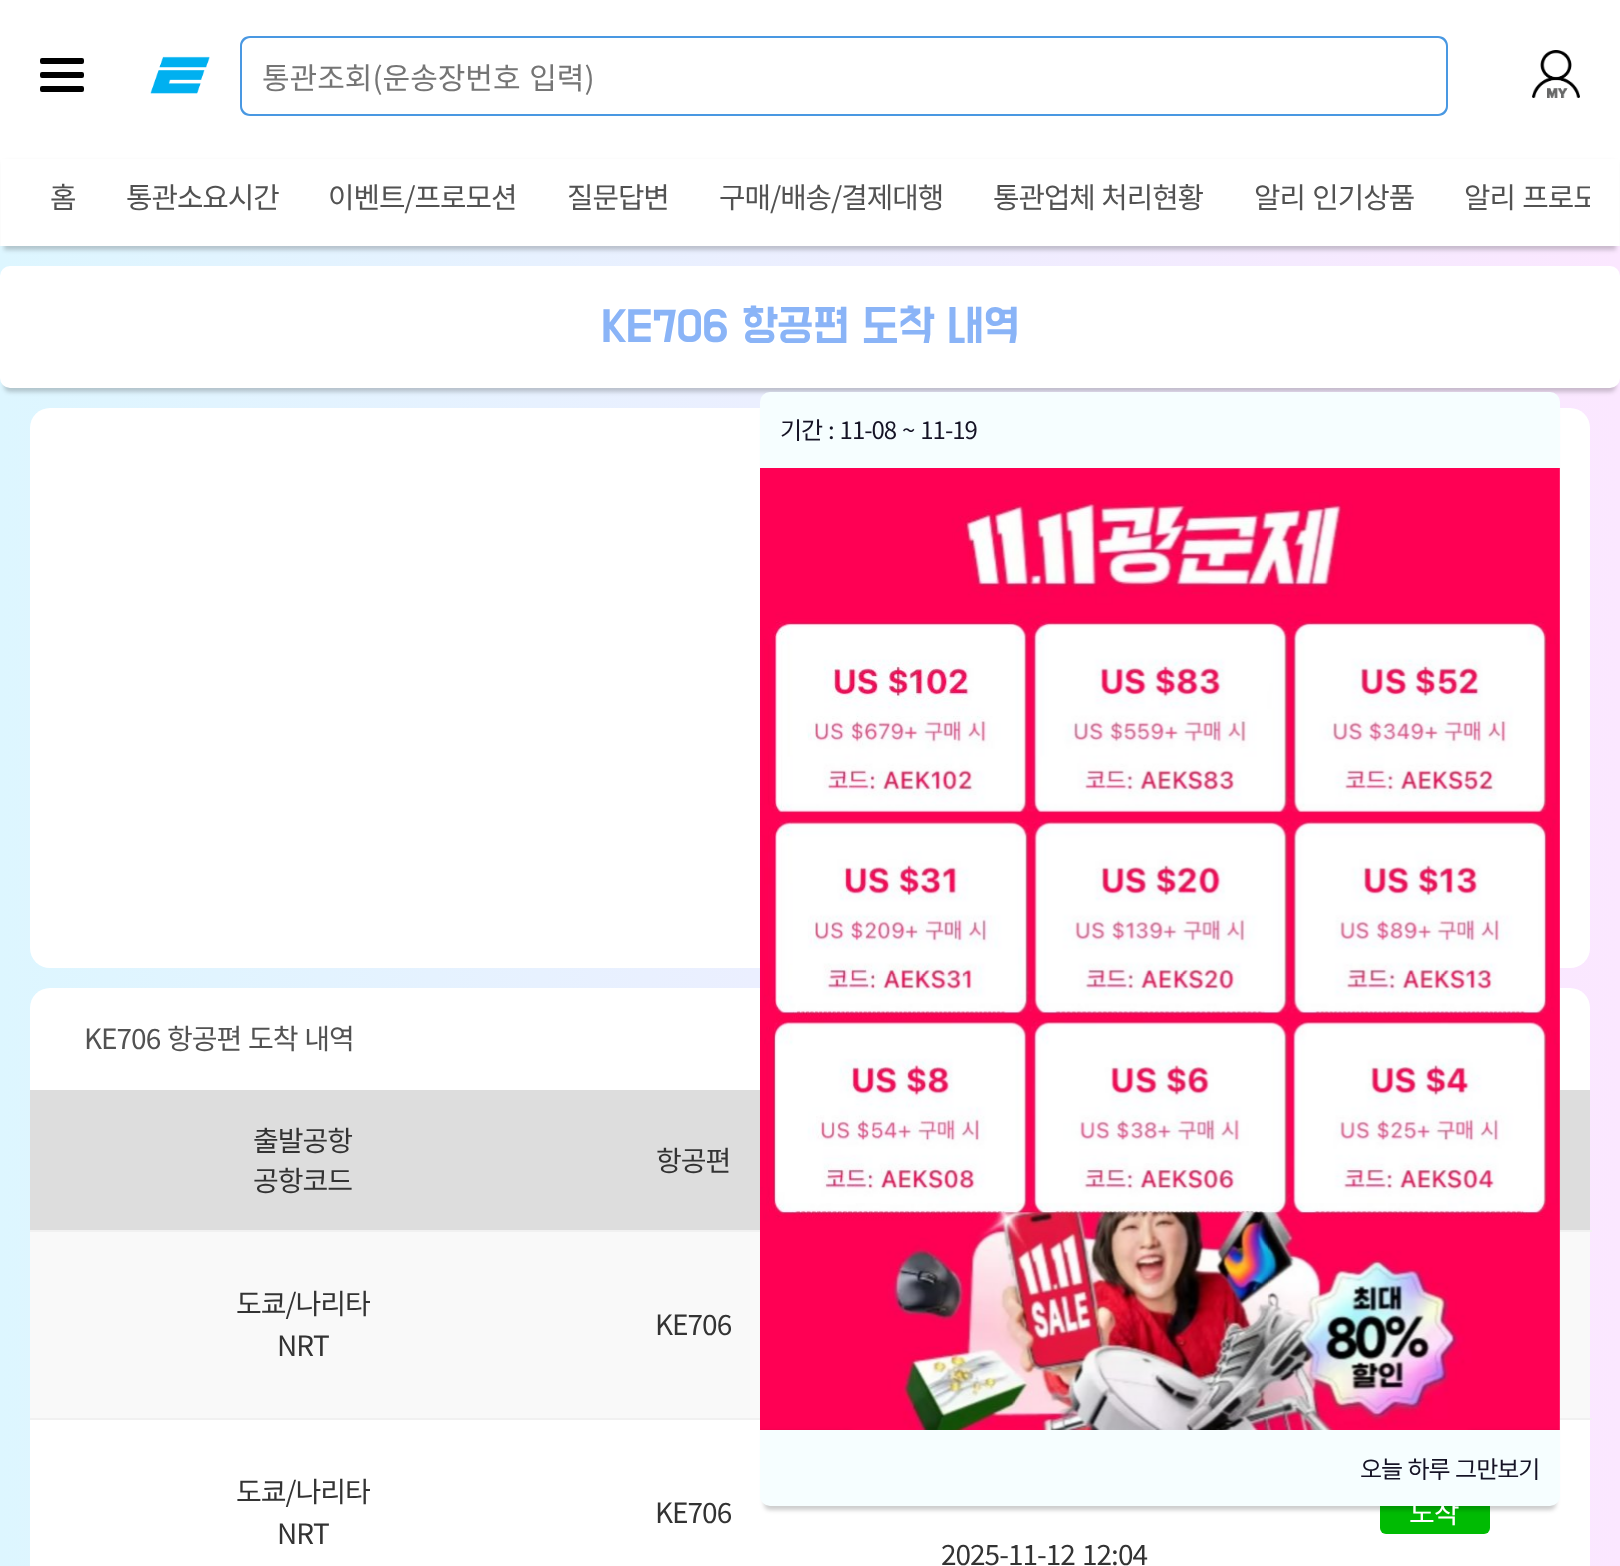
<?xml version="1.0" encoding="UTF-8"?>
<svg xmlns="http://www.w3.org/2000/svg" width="1620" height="1566">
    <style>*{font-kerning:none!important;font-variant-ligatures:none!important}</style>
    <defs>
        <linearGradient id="g1" gradientUnits="userSpaceOnUse" x1="1620" y1="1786" x2="0" y2="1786"><stop offset="0" stop-color="#FBE7FF"/><stop offset="1" stop-color="#DDF6FF"/></linearGradient>
        <filter id="blur1" x="-50%" y="-200%" width="200%" height="500%"><feGaussianBlur stdDeviation="2"/></filter>
        <clipPath id="clip1"><rect x="30" y="150" width="1560" height="96"/></clipPath>
    </defs>
    <rect width="100%" height="100%" fill="#FFFFFF"/>
    <rect x="0" y="246" width="1620" height="1320" fill="url(#g1)"/>
    <rect x="41" y="59" width="42" height="4" rx="1" fill="#000000" stroke="#000000" stroke-width="2"/>
    <rect x="41" y="73" width="42" height="4" rx="1" fill="#000000" stroke="#000000" stroke-width="2"/>
    <rect x="41" y="87" width="42" height="4" rx="1" fill="#000000" stroke="#000000" stroke-width="2"/>
    <image x="150" y="56" width="60" height="38" href="img_01.png"/>
    <path d="M 250 36 H 1390 V 116 H 250 C 244 116 240 112 240 106 V 46 C 240 40 244 36 250 36 Z M 250 38 H 1390 V 114 H 250 C 246 114 242 110 242 106 V 46 C 242 42 246 38 250 38 Z" fill="#4998E2" fill-rule="evenodd"/>
    <text x="262" y="89" word-spacing="2" font-family="Noto Sans KR" font-size="30" font-weight="100" fill="#757575">통관조회(운송장번호 입력)</text>
    <path d="M 1388 36 H 1438 C 1444 36 1448 40 1448 46 V 106 C 1448 112 1444 116 1438 116 H 1388 Z M 1388 38 H 1438 C 1442 38 1446 42 1446 46 V 106 C 1446 110 1442 114 1438 114 H 1388 Z" fill="#4998E2" fill-rule="evenodd"/>
    <image x="1532" y="50" width="48" height="48" href="img_02.png"/>
    <rect x="4" y="162" width="1612" height="88" fill="#000000" fill-opacity="0.2" filter="url(#blur1)"/>
    <rect x="1" y="159" width="1618" height="87" fill="#FFFFFF"/>
    <text x="50" y="208" font-family="Noto Sans KR" font-size="28.75" font-weight="100" letter-spacing="-1" fill="#525252">홈</text>
    <text x="126" y="208" font-family="Noto Sans KR" font-size="28.75" font-weight="100" letter-spacing="-1" fill="#525252">통관소요시간</text>
    <text x="328" y="208" font-family="Noto Sans KR" font-size="28.75" font-weight="100" letter-spacing="-1" fill="#525252">이벤트/프로모션</text>
    <text x="567" y="208" font-family="Noto Sans KR" font-size="28.75" font-weight="100" letter-spacing="-1" fill="#525252">질문답변</text>
    <text x="719" y="208" font-family="Noto Sans KR" font-size="28.75" font-weight="100" letter-spacing="-1" fill="#525252">구매/배송/결제대행</text>
    <text x="993" y="208" word-spacing="1" font-family="Noto Sans KR" font-size="28.75" font-weight="100" letter-spacing="-1" fill="#525252">통관업체 처리현황</text>
    <text x="1254" y="208" word-spacing="2" font-family="Noto Sans KR" font-size="28.75" font-weight="100" letter-spacing="-1" fill="#525252">알리 인기상품</text>
    <g clip-path="url(#clip1)">
        <text x="1464" y="208" word-spacing="2" font-family="Noto Sans KR" font-size="28.75" font-weight="100" letter-spacing="-1" fill="#525252">알리 프로모</text>
    </g>
    <rect x="4" y="278" width="1612" height="114" rx="6" fill="#000000" fill-opacity="0.2" filter="url(#blur1)"/>
    <rect x="0" y="266" width="1620" height="122" rx="10" fill="#FFFFFF"/>
    <text x="601" y="342" font-family="Do Hyeon" font-size="48" letter-spacing="-1" fill="#8AB4F7">KE706 항공편 도착 내역</text>
    <rect x="30" y="408" width="1560" height="560" rx="20" fill="#FFFFFF"/>
    <rect x="30" y="988" width="1560" height="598" rx="20" fill="#FFFFFF"/>
    <rect x="30" y="1090" width="730" height="140" fill="#DDDDDD"/>
    <rect x="1560" y="1090" width="30" height="140" fill="#DDDDDD"/>
    <rect x="30" y="1232" width="1560" height="186" fill="#F9F9F9"/>
    <rect x="1560" y="1230" width="32" height="2" fill="#F1F1F1"/>
    <rect x="30" y="1230" width="730" height="2" fill="#F1F1F1"/>
    <rect x="30" y="1418" width="730" height="2" fill="#F1F1F1"/>
    <rect x="1560" y="1418" width="32" height="2" fill="#F1F1F1"/>
    <rect x="1380" y="1492" width="110" height="42" rx="6" fill="#00BB03"/>
    <rect x="764" y="404" width="792" height="1106" rx="6" fill="#000000" fill-opacity="0.2" filter="url(#blur1)"/>
    <text x="1409" y="1523" font-family="Noto Sans KR" font-size="28" font-weight="100" letter-spacing="-1" fill="#FFFFFF">도착</text>
    <rect x="760" y="392" width="800" height="1114" rx="10" fill="#F6FEFF"/>
    <text x="780" y="439" word-spacing="1.5" font-family="Noto Sans KR" font-size="24" font-weight="100" letter-spacing="-1" fill="#151325">기간 : 11-08 ~ 11-19</text>
    <image x="760" y="468" width="800" height="962" href="img_03.png"/>
    <text x="1360" y="1478" word-spacing="1" font-family="Noto Sans KR" font-size="24" font-weight="100" letter-spacing="-1" fill="#151325">오늘 하루 그만보기</text>
    <text x="84" y="1049" word-spacing="1.5" font-family="Noto Sans KR" font-size="28" font-weight="100" letter-spacing="-1" fill="#525252">KE706 항공편 도착 내역</text>
    <text font-family="Noto Sans KR" font-size="28" font-weight="100" letter-spacing="-1" fill="#333333">
        <tspan x="253" y="1151">출발공항</tspan>
        <tspan x="253" y="1191">공항코드</tspan>
    </text>
    <text x="656" y="1171" font-family="Noto Sans KR" font-size="28" font-weight="100" letter-spacing="-1" fill="#333333">항공편</text>
    <text x="236" y="1314" font-family="Noto Sans KR" font-size="28" font-weight="100" letter-spacing="-1" fill="#333333">도쿄/나리타</text>
    <text x="277" y="1356" font-family="Noto Sans KR" font-size="28" font-weight="100" letter-spacing="-1" fill="#333333">NRT</text>
    <text x="655" y="1335" font-family="Noto Sans KR" font-size="28" font-weight="100" letter-spacing="-1" fill="#333333">KE706</text>
    <text x="236" y="1502" font-family="Noto Sans KR" font-size="28" font-weight="100" letter-spacing="-1" fill="#333333">도쿄/나리타</text>
    <text x="277" y="1544" font-family="Noto Sans KR" font-size="28" font-weight="100" letter-spacing="-1" fill="#333333">NRT</text>
    <text x="655" y="1523" font-family="Noto Sans KR" font-size="28" font-weight="100" letter-spacing="-1" fill="#333333">KE706</text>
    <text x="941" y="1565" word-spacing="2" font-family="Noto Sans KR" font-size="28" font-weight="100" letter-spacing="-1" fill="#333333">2025-11-12 12:04</text>
</svg>
